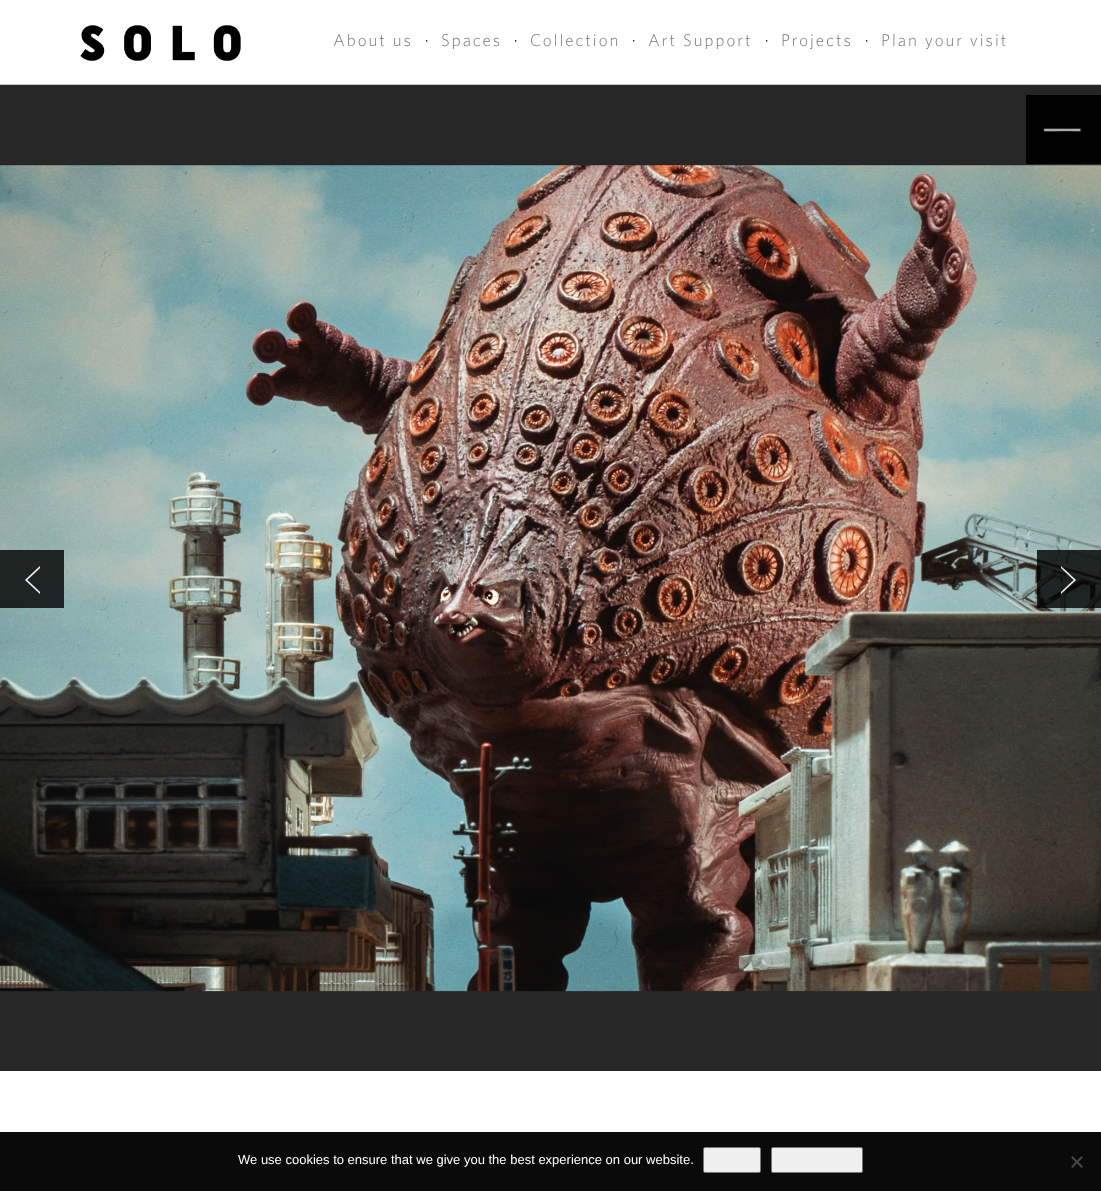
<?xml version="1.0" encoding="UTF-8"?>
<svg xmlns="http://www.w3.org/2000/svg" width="1101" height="1191">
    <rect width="100%" height="100%" fill="#FFFFFF"/>
    <image x="80" y="25" width="161" height="36" href="img_01.png"/>
    <text x="333" y="46" font-family="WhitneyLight" font-size="17" font-weight="300" letter-spacing="2" fill="#777777">About us</text>
    <image x="426" y="40" width="2" height="2" href="img_02.png"/>
    <text x="441" y="46" font-family="WhitneyLight" font-size="17" font-weight="300" letter-spacing="2" fill="#777777">Spaces</text>
    <image x="515" y="40" width="2" height="2" href="img_02.png"/>
    <text x="530" y="46" font-family="WhitneyLight" font-size="17" font-weight="300" letter-spacing="2" fill="#777777">Collection</text>
    <image x="633" y="40" width="2" height="2" href="img_02.png"/>
    <text x="648" y="46" font-family="WhitneyLight" font-size="17" font-weight="300" letter-spacing="2" fill="#777777">Art Support</text>
    <image x="766" y="40" width="2" height="2" href="img_02.png"/>
    <text x="781" y="46" font-family="WhitneyLight" font-size="17" font-weight="300" letter-spacing="2" fill="#777777">Projects</text>
    <image x="866" y="40" width="2" height="2" href="img_02.png"/>
    <text x="881" y="46" font-family="WhitneyLight" font-size="17" font-weight="300" letter-spacing="2" fill="#777777">Plan your visit</text>
    <rect x="0" y="84" width="1101" height="1" fill="#C5C5C5"/>
    <rect x="0" y="85" width="1101" height="986" fill="#272727"/>
    <image x="1026" y="95" width="75" height="69" href="img_03.png"/>
    <image x="0" y="165" width="1101" height="827" href="img_04.png"/>
    <image x="0" y="550" width="64" height="58" href="img_05.png"/>
    <image x="1037" y="550" width="64" height="58" href="img_06.png"/>
    <rect x="0" y="1132" width="1101" height="59" fill="#0A0A0A"/>
    <text x="238" y="1164" font-family="Liberation Sans" font-size="13" fill="#FFFFFF">We use cookies to ensure that we give you the best experience on our website.</text>
    <rect x="703.5" y="1147.5" width="57" height="25" rx="1.5" fill="#EFEFEF" stroke="#767676"/>
    <rect x="771.5" y="1147.5" width="91" height="25" rx="1.5" fill="#EFEFEF" stroke="#767676"/>
    <path d="M 1081.5 1156 L 1083 1157.5 L 1072.5 1168 L 1071 1166.5 Z" fill="#454545"/>
    <path d="M 1071 1157.5 L 1072.5 1156 L 1083 1166.5 L 1081.5 1168 Z" fill="#454545"/>
</svg>
